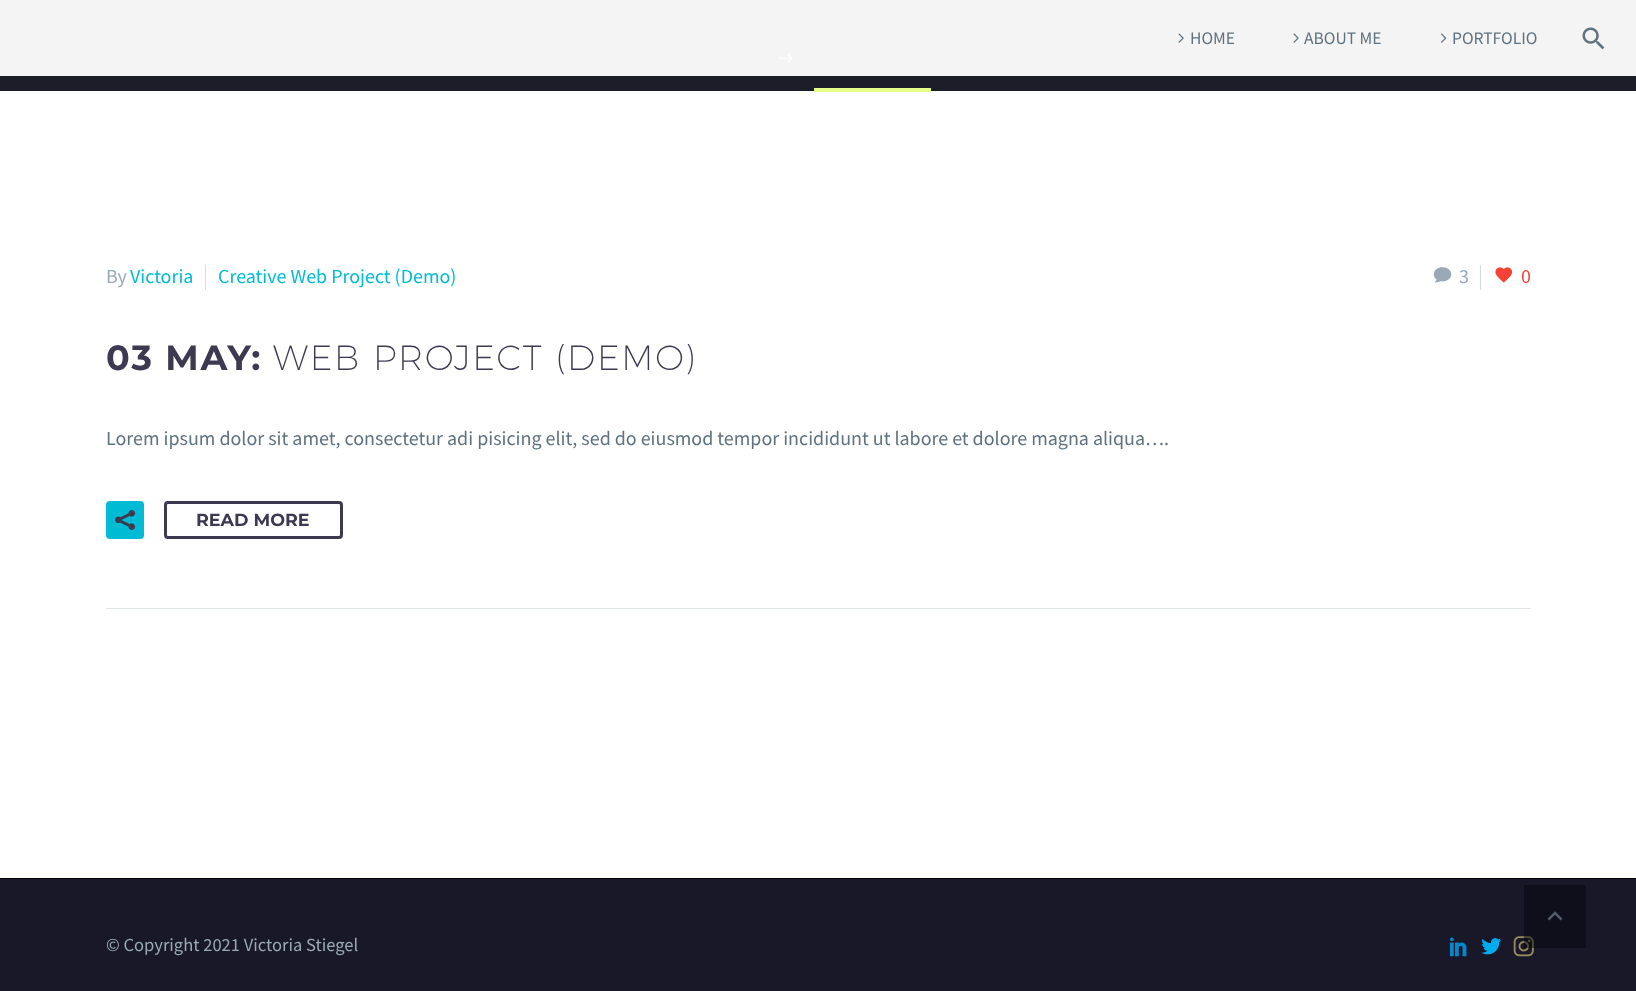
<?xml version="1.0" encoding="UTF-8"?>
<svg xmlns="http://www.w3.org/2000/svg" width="1636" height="991">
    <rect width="100%" height="100%" fill="#181828"/>
    <rect x="0" y="0" width="1636" height="76" fill="#F4F4F4"/>
    <image x="1178" y="33" width="6" height="10" href="img_01.png"/>
    <text x="1190" y="44" font-family="Source Sans Pro" font-size="17.5" fill="#5F727F">HOME</text>
    <image x="1293" y="33" width="6" height="10" href="img_01.png"/>
    <text x="1304" y="44" font-family="Source Sans Pro" font-size="17.5" fill="#5F727F">ABOUT ME</text>
    <image x="1441" y="33" width="6" height="10" href="img_02.png"/>
    <text x="1452" y="44" font-family="Source Sans Pro" font-size="17.5" fill="#5F727F">PORTFOLIO</text>
    <image x="1582" y="27" width="23" height="23" href="img_03.png"/>
    <rect x="0" y="76" width="1636" height="15" fill="#1C1D28"/>
    <image x="777" y="53" width="16" height="10" href="img_04.png"/>
    <rect x="0" y="91" width="1636" height="787" fill="#FFFFFF"/>
    <rect x="814" y="88" width="117" height="4" fill="#E7FF89"/>
    <rect x="106" y="608" width="1425" height="1" fill="#DFE5E8"/>
    <text x="106" y="283" font-family="Source Sans Pro" font-size="20" fill="#99A9B5">By</text>
    <text x="130" y="283" font-family="Source Sans Pro" font-size="20" fill="#00BCD4">Victoria</text>
    <rect x="205" y="265" width="1" height="25" fill="#D4DEE1"/>
    <text x="218" y="283" font-family="Source Sans Pro" font-size="20" fill="#00BCD4">Creative Web Project (Demo)</text>
    <image x="1433" y="267" width="19" height="16" href="img_05.png"/>
    <text x="1459" y="283" font-family="Source Sans Pro" font-size="20" fill="#99A9B5">3</text>
    <rect x="1480" y="265" width="1" height="25" fill="#D4DEE1"/>
    <image x="1495" y="267" width="18" height="16" href="img_06.png"/>
    <text x="1521" y="283" font-family="Source Sans Pro" font-size="20" fill="#F44336">0</text>
    <text x="106" y="370" font-family="Montserrat" font-size="35" font-weight="700" letter-spacing="1.75" fill="#3C3950">03 MAY:</text>
    <text x="273" y="370" font-family="Montserrat" font-size="35" font-weight="200" letter-spacing="1.75" fill="#3C3950">WEB PROJECT (DEMO)</text>
    <text x="106" y="445" font-family="Source Sans Pro" font-size="20" fill="#5F727F">Lorem ipsum dolor sit amet, consectetur adi pisicing elit, sed do eiusmod tempor incididunt ut labore et dolore magna aliqua….</text>
    <rect x="106" y="501" width="38" height="38" rx="4" fill="#00BBD4"/>
    <image x="115" y="510" width="20" height="20" href="img_07.png"/>
    <rect x="165.5" y="502.5" width="176" height="35" rx="2.5" fill="none" stroke="#3C3950" stroke-width="3"/>
    <text x="196" y="526" font-family="Montserrat" font-size="17.5" font-weight="700" fill="#3C3950">READ MORE</text>
    <rect x="0" y="878" width="1636" height="1" fill="#000000"/>
    <text x="106" y="951" font-family="Source Sans Pro" font-size="18.5" fill="#99A9B5">© Copyright 2021 Victoria Stiegel</text>
    <image x="1450" y="937" width="17" height="20" href="img_08.png"/>
    <image x="1481" y="938" width="21" height="17" href="img_09.png"/>
    <image x="1513" y="936" width="21" height="21" href="img_10.png"/>
    <rect x="1524" y="885" width="62" height="63" fill="#06060F" fill-opacity="0.5"/>
    <image x="1547" y="911" width="16" height="10" href="img_11.png"/>
</svg>
